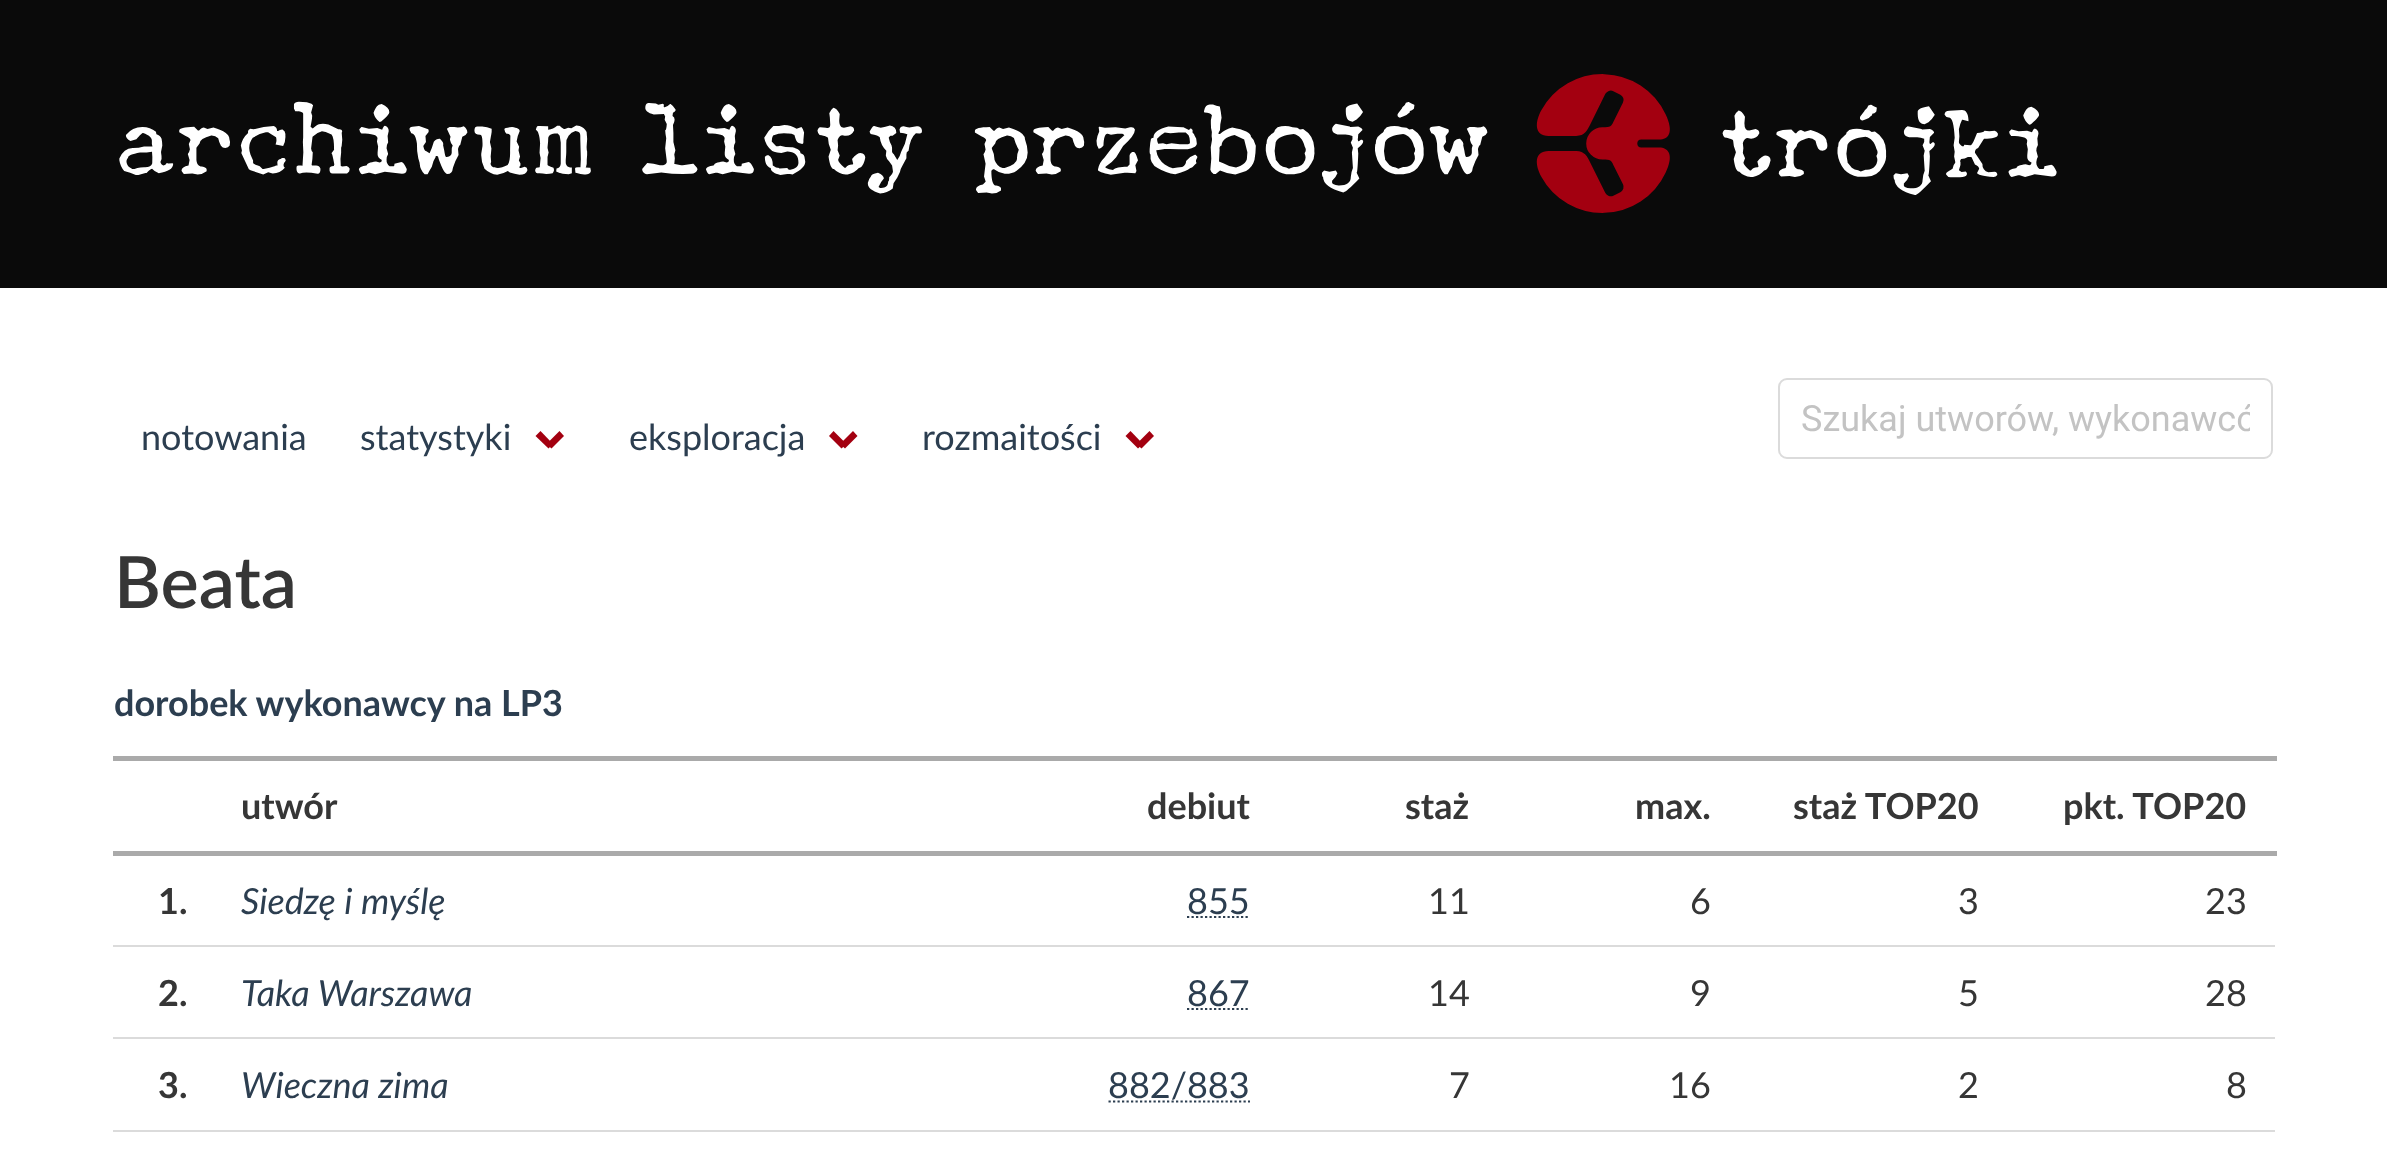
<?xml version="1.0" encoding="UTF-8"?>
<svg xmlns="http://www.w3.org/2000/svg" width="2387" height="1169">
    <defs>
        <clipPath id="clip1"><rect x="1800" y="398" width="450" height="43"/></clipPath>
    </defs>
    <rect width="100%" height="100%" fill="#FFFFFF"/>
    <rect x="0" y="0" width="2387" height="288" fill="#0A0A0A"/>
    <image x="119" y="74" width="1938" height="139" href="img_01.png"/>
    <text x="141" y="450" font-family="Lato" font-size="36" fill="#2C3E50">notowania</text>
    <text x="360" y="450" font-family="Lato" font-size="36" fill="#2C3E50">statystyki</text>
    <path d="M 546.5 444 L 559.5 431 L 564 436 L 551.5 448.5 Z" fill="#A30010"/>
    <path d="M 535.5 436 L 540.5 431 L 553 444 L 548.5 448.5 Z" fill="#A30010"/>
    <text x="629" y="450" font-family="Lato" font-size="36" fill="#2C3E50">eksploracja</text>
    <path d="M 840 444 L 853 431 L 857.5 436 L 845 448.5 Z" fill="#A30010"/>
    <path d="M 829 436 L 833.5 431 L 846.5 444 L 841.5 448.5 Z" fill="#A30010"/>
    <text x="922" y="450" font-family="Lato" font-size="36" fill="#2C3E50">rozmaitości</text>
    <path d="M 1136.5 444 L 1149.5 431 L 1154 436 L 1141.5 448.5 Z" fill="#A30010"/>
    <path d="M 1125.5 436 L 1130.5 431 L 1143 444 L 1138 448.5 Z" fill="#A30010"/>
    <rect x="1779" y="379" width="493" height="79" rx="8" fill="none" stroke="#DBDBDB" stroke-width="2"/>
    <g clip-path="url(#clip1)">
        <text x="1801" y="431" font-family="Roboto" font-size="36" fill="#C3C3C3">Szukaj utworów, wykonawcó</text>
    </g>
    <text x="114" y="608" font-family="Lato" font-size="72" font-weight="600" fill="#363636">Beata</text>
    <text x="114" y="716" font-family="Lato" font-size="36" font-weight="700" fill="#2C3E50">dorobek wykonawcy na LP3</text>
    <text x="241" y="819" font-family="Lato" font-size="36" font-weight="700" fill="#363636">utwór</text>
    <text x="1147" y="819" font-family="Lato" font-size="36" font-weight="700" fill="#363636">debiut</text>
    <text x="1405" y="819" font-family="Lato" font-size="36" font-weight="700" fill="#363636">staż</text>
    <text x="1635" y="819" font-family="Lato" font-size="36" font-weight="700" fill="#363636">max.</text>
    <text x="1793" y="819" font-family="Lato" font-size="36" font-weight="700" fill="#363636">staż TOP20</text>
    <rect x="113" y="756" width="2164" height="5" fill="#AAAAAA"/>
    <rect x="113" y="851" width="2164" height="5" fill="#AAAAAA"/>
    <text x="2063" y="819" font-family="Lato" font-size="36" font-weight="700" fill="#363636">pkt. TOP20</text>
    <text x="158" y="914" font-family="Lato" font-size="36" font-weight="700" fill="#363636">1.</text>
    <text x="241" y="914" font-family="Lato" font-size="36" font-style="italic" fill="#2C3E50">Siedzę i myślę</text>
    <text x="1187" y="914" font-family="Lato" font-size="36" fill="#2C3E50">855</text>
    <path d="M 1187 917 H 1250" fill="none" stroke="#2C3E50" stroke-width="2.2" stroke-dasharray="2.25 2.25"/>
    <text x="1428" y="914" font-family="Lato" font-size="36" fill="#363636">11</text>
    <text x="1690" y="914" font-family="Lato" font-size="36" fill="#363636">6</text>
    <text x="1958" y="914" font-family="Lato" font-size="36" fill="#363636">3</text>
    <rect x="113" y="945" width="2162" height="2" fill="#DBDBDB"/>
    <text x="2205" y="914" font-family="Lato" font-size="36" fill="#363636">23</text>
    <text x="158" y="1006" font-family="Lato" font-size="36" font-weight="700" fill="#363636">2.</text>
    <text x="241" y="1006" font-family="Lato" font-size="36" font-style="italic" fill="#2C3E50">Taka Warszawa</text>
    <text x="1187" y="1006" font-family="Lato" font-size="36" fill="#2C3E50">867</text>
    <path d="M 1187 1009 H 1250" fill="none" stroke="#2C3E50" stroke-width="2.2" stroke-dasharray="2.25 2.25"/>
    <text x="1428" y="1006" font-family="Lato" font-size="36" fill="#363636">14</text>
    <text x="1690" y="1006" font-family="Lato" font-size="36" fill="#363636">9</text>
    <text x="1958" y="1006" font-family="Lato" font-size="36" fill="#363636">5</text>
    <rect x="113" y="1037" width="2162" height="2" fill="#DBDBDB"/>
    <text x="2205" y="1006" font-family="Lato" font-size="36" fill="#363636">28</text>
    <text x="158" y="1098" font-family="Lato" font-size="36" font-weight="700" fill="#363636">3.</text>
    <text x="241" y="1098" font-family="Lato" font-size="36" font-style="italic" fill="#2C3E50">Wieczna zima</text>
    <text x="1108" y="1098" font-family="Lato" font-size="36" fill="#2C3E50">882/883</text>
    <path d="M 1108.5 1101.5 H 1250" fill="none" stroke="#2C3E50" stroke-width="2.2" stroke-dasharray="2.25 2.25"/>
    <text x="1449" y="1098" font-family="Lato" font-size="36" fill="#363636">7</text>
    <text x="1669" y="1098" font-family="Lato" font-size="36" fill="#363636">16</text>
    <text x="1958" y="1098" font-family="Lato" font-size="36" fill="#363636">2</text>
    <rect x="113" y="1130" width="2162" height="2" fill="#DBDBDB"/>
    <text x="2226" y="1098" font-family="Lato" font-size="36" fill="#363636">8</text>
</svg>
